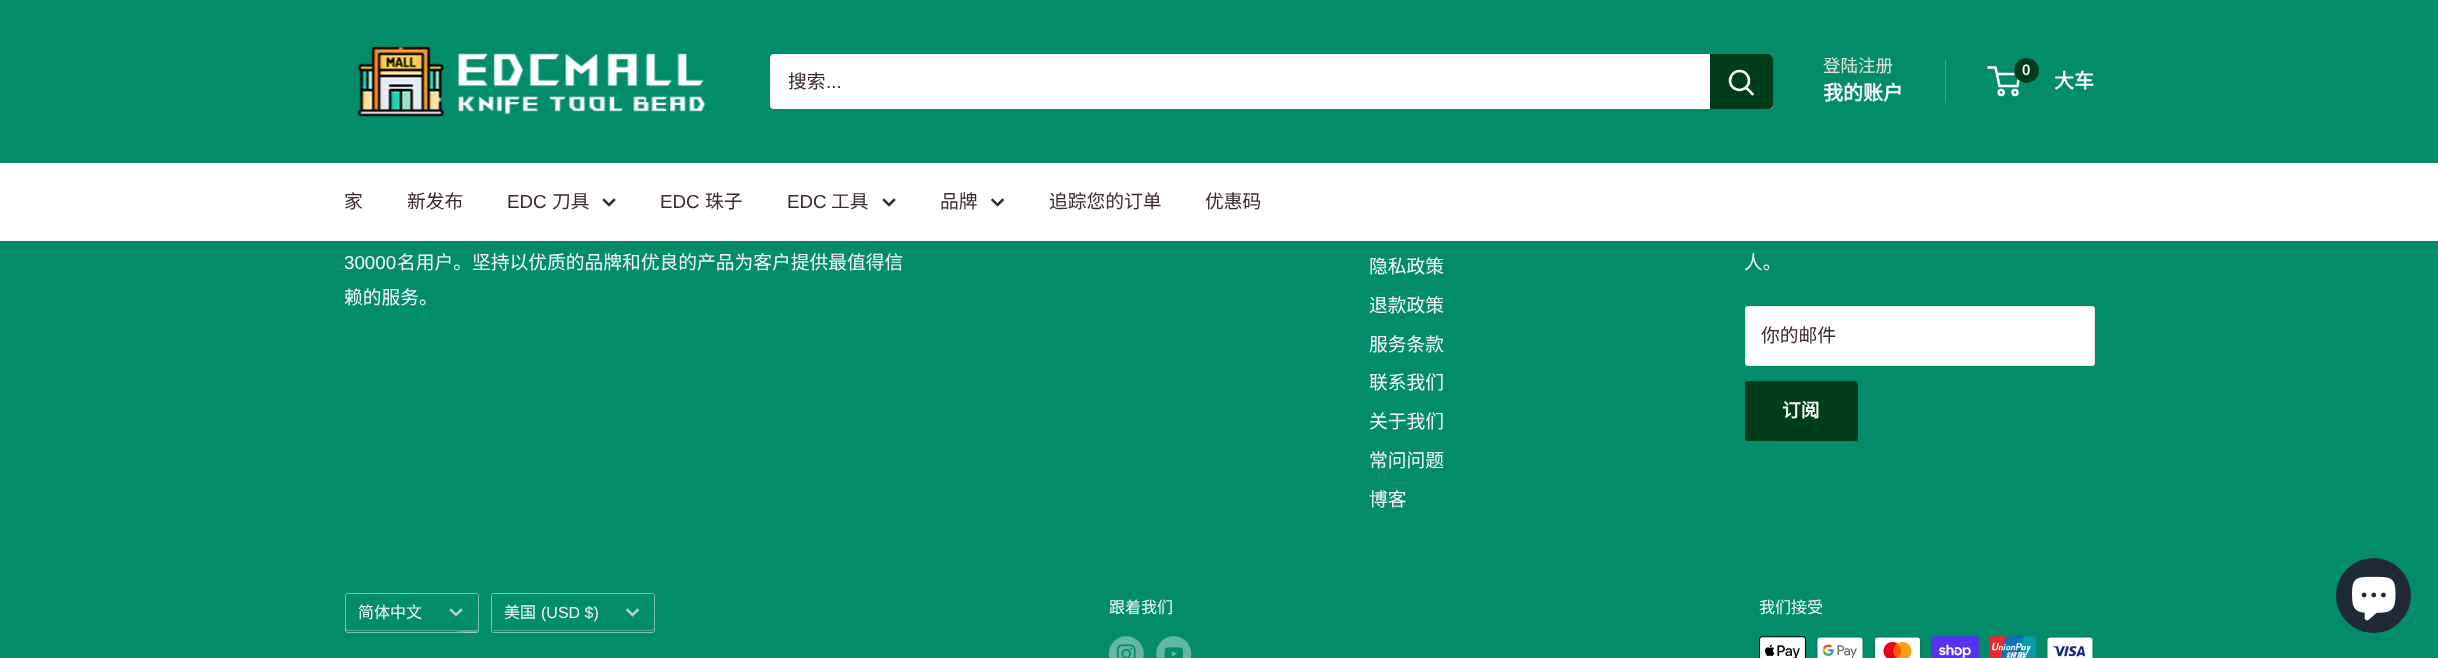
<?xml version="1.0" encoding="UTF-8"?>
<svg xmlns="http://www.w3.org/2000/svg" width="2438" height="658">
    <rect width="100%" height="100%" fill="#028C6A"/>
    <image x="357" y="46" width="349" height="71" href="img_01.png"/>
    <rect x="770" y="54" width="1003" height="55" rx="4" fill="#FFFFFF"/>
    <text x="788" y="88" font-family="Noto Sans CJK SC" font-size="18.75" fill="#3A2A2F">搜索</text>
    <text x="826" y="88" font-family="Arimo" font-size="18.75" fill="#3A2A2F">...</text>
    <path d="M 1710 54 H 1769 C 1771 54 1773 56 1773 58 V 105 C 1773 107 1771 109 1769 109 H 1710 Z" fill="#003E19"/>
    <path d="M 1752.5 94 L 1746 87.5" fill="none" stroke="#FFFFFF" stroke-width="2.5" stroke-linecap="square"/>
    <circle cx="1739.5" cy="80.5" r="9.5" fill="none" stroke="#FFFFFF" stroke-width="2.5"/>
    <text x="1823" y="72" font-family="Noto Sans CJK SC" font-size="17.5" fill="#E9E2DD">登陆注册</text>
    <rect x="1945" y="60" width="1" height="43" fill="#47A68D"/>
    <text x="1823" y="100" font-family="Noto Sans CJK SC" font-size="20" font-weight="700" fill="#FFFFFF">我的账户</text>
    <circle cx="2001.2" cy="92.5" r="2.5" fill="none" stroke="#FFFFFF" stroke-width="2.5"/>
    <circle cx="2015" cy="92.5" r="2.5" fill="none" stroke="#FFFFFF" stroke-width="2.5"/>
    <path d="M 1996.5 74 H 2019.5 L 2017.5 86 H 1999.5 L 1995.5 67.5 H 1987.5" fill="none" stroke="#FFFFFF" stroke-width="2.5"/>
    <circle cx="2026.5" cy="70.5" r="12.5" fill="#003E19"/>
    <text x="2022" y="75" font-family="Arimo" font-size="15" font-weight="600" fill="#FFFFFF">0</text>
    <text x="2054" y="88" font-family="Noto Sans CJK SC" font-size="20" font-weight="700" fill="#FFFFFF">大车</text>
    <rect x="0" y="163" width="2438" height="77" fill="#FFFFFF"/>
    <rect x="0" y="240" width="2438" height="1" fill="#F7F7F7"/>
    <text x="344" y="208" font-family="Noto Sans CJK SC" font-size="18.75" fill="#3A2A2F">家</text>
    <text x="407" y="208" font-family="Noto Sans CJK SC" font-size="18.75" fill="#3A2A2F">新发布</text>
    <text x="507" y="208" font-family="Arimo" font-size="18.75" fill="#3A2A2F">EDC</text>
    <text x="552" y="208" font-family="Noto Sans CJK SC" font-size="18.75" fill="#3A2A2F">刀具</text>
    <path d="M 614 200 L 609 205 L 604 200" fill="none" stroke="#3A2A2F" stroke-width="2.5" stroke-linecap="square"/>
    <text x="660" y="208" font-family="Arimo" font-size="18.75" fill="#3A2A2F">EDC</text>
    <text x="705" y="208" font-family="Noto Sans CJK SC" font-size="18.75" fill="#3A2A2F">珠子</text>
    <text x="787" y="208" font-family="Arimo" font-size="18.75" fill="#3A2A2F">EDC</text>
    <text x="831" y="208" font-family="Noto Sans CJK SC" font-size="18.75" fill="#3A2A2F">工具</text>
    <path d="M 894 200 L 889 205 L 884 200" fill="none" stroke="#3A2A2F" stroke-width="2.5" stroke-linecap="square"/>
    <text x="940" y="208" font-family="Noto Sans CJK SC" font-size="18.75" fill="#3A2A2F">品牌</text>
    <path d="M 1002.5 200 L 997.5 205 L 992.5 200" fill="none" stroke="#3A2A2F" stroke-width="2.5" stroke-linecap="square"/>
    <text x="1049" y="208" font-family="Noto Sans CJK SC" font-size="18.75" fill="#3A2A2F">追踪您的订单</text>
    <text x="1205" y="208" font-family="Noto Sans CJK SC" font-size="18.75" fill="#3A2A2F">优惠码</text>
    <text x="344" y="269" font-family="Arimo" font-size="18.75" fill="#F7F7F7">30000</text>
    <text x="397" y="269" font-family="Noto Sans CJK SC" font-size="18.75" fill="#F7F7F7">名用户。坚持以优质的品牌和优良的产品为客户提供最值得信</text>
    <text x="344" y="304" font-family="Noto Sans CJK SC" font-size="18.75" fill="#F7F7F7">赖的服务。</text>
    <text x="1369" y="273" font-family="Noto Sans CJK SC" font-size="18.75" fill="#F7F7F7">隐私政策</text>
    <text x="1369" y="312" font-family="Noto Sans CJK SC" font-size="18.75" fill="#F7F7F7">退款政策</text>
    <text x="1369" y="351" font-family="Noto Sans CJK SC" font-size="18.75" fill="#F7F7F7">服务条款</text>
    <text x="1369" y="389" font-family="Noto Sans CJK SC" font-size="18.75" fill="#F7F7F7">联系我们</text>
    <text x="1369" y="428" font-family="Noto Sans CJK SC" font-size="18.75" fill="#F7F7F7">关于我们</text>
    <text x="1369" y="467" font-family="Noto Sans CJK SC" font-size="18.75" fill="#F7F7F7">常问问题</text>
    <text x="1369" y="506" font-family="Noto Sans CJK SC" font-size="18.75" fill="#F7F7F7">博客</text>
    <text x="1744" y="269" font-family="Noto Sans CJK SC" font-size="18.75" fill="#F7F7F7">人。</text>
    <rect x="1745.5" y="306.5" width="349" height="59" rx="2" fill="#FFFFFF" stroke="#EAEAEA"/>
    <text x="1761" y="342" font-family="Noto Sans CJK SC" font-size="18.75" fill="#3A2A2F">你的邮件</text>
    <rect x="1745" y="381" width="113" height="60" rx="2.5" fill="#003E19"/>
    <text x="1782" y="417" font-family="Noto Sans CJK SC" font-size="18.75" font-weight="700" fill="#FFFFFF">订阅</text>
    <path d="M 346 629 V 631 H 455 C 456 631 478 637 478 629 L 476 630 H 348 Z" fill="#4CAC94"/>
    <rect x="345.5" y="593.5" width="133" height="39" rx="2" fill="none" stroke="#F7F7F7" stroke-opacity="0.5"/>
    <text x="358" y="618" font-family="Noto Sans CJK SC" font-size="16" fill="#F7F7F7">简体中文</text>
    <path d="M 461 610 L 456 615 L 451 610" fill="none" stroke="#AED7CD" stroke-width="2.5" stroke-linecap="square"/>
    <path d="M 493 630 C 493 630 493 631 494 631 H 653 L 654 629 L 652 630 Z" fill="#4CAC94"/>
    <rect x="491.5" y="593.5" width="163" height="39" rx="2" fill="none" stroke="#7DC2B1"/>
    <text x="504" y="618" font-family="Noto Sans CJK SC" font-size="16" fill="#F7F7F7">美国</text>
    <text x="541" y="618" font-family="Arimo" font-size="16" fill="#F7F7F7">(USD $)</text>
    <path d="M 637.5 610 L 632.5 615 L 627.5 610" fill="none" stroke="#AED7CD" stroke-width="2.5" stroke-linecap="square"/>
    <text x="1109" y="613" font-family="Noto Sans CJK SC" font-size="16" fill="#F7F7F7">跟着我们</text>
    <image x="1108" y="636" width="36" height="22" href="img_02.png"/>
    <image x="1156" y="636" width="36" height="22" href="img_03.png"/>
    <text x="1759" y="613" font-family="Noto Sans CJK SC" font-size="16" fill="#F7F7F7">我们接受</text>
    <image x="1759" y="636" width="47" height="22" href="img_04.png"/>
    <image x="1816" y="636" width="48" height="22" href="img_05.png"/>
    <image x="1874" y="636" width="47" height="22" href="img_06.png"/>
    <image x="1931" y="636" width="48" height="22" href="img_07.png"/>
    <image x="1989" y="636" width="47" height="22" href="img_08.png"/>
    <image x="2046" y="636" width="48" height="22" href="img_09.png"/>
    <circle cx="2373.5" cy="595.5" r="37.5" fill="#202A36"/>
    <image x="2352" y="576" width="44" height="45" href="img_10.png"/>
</svg>
